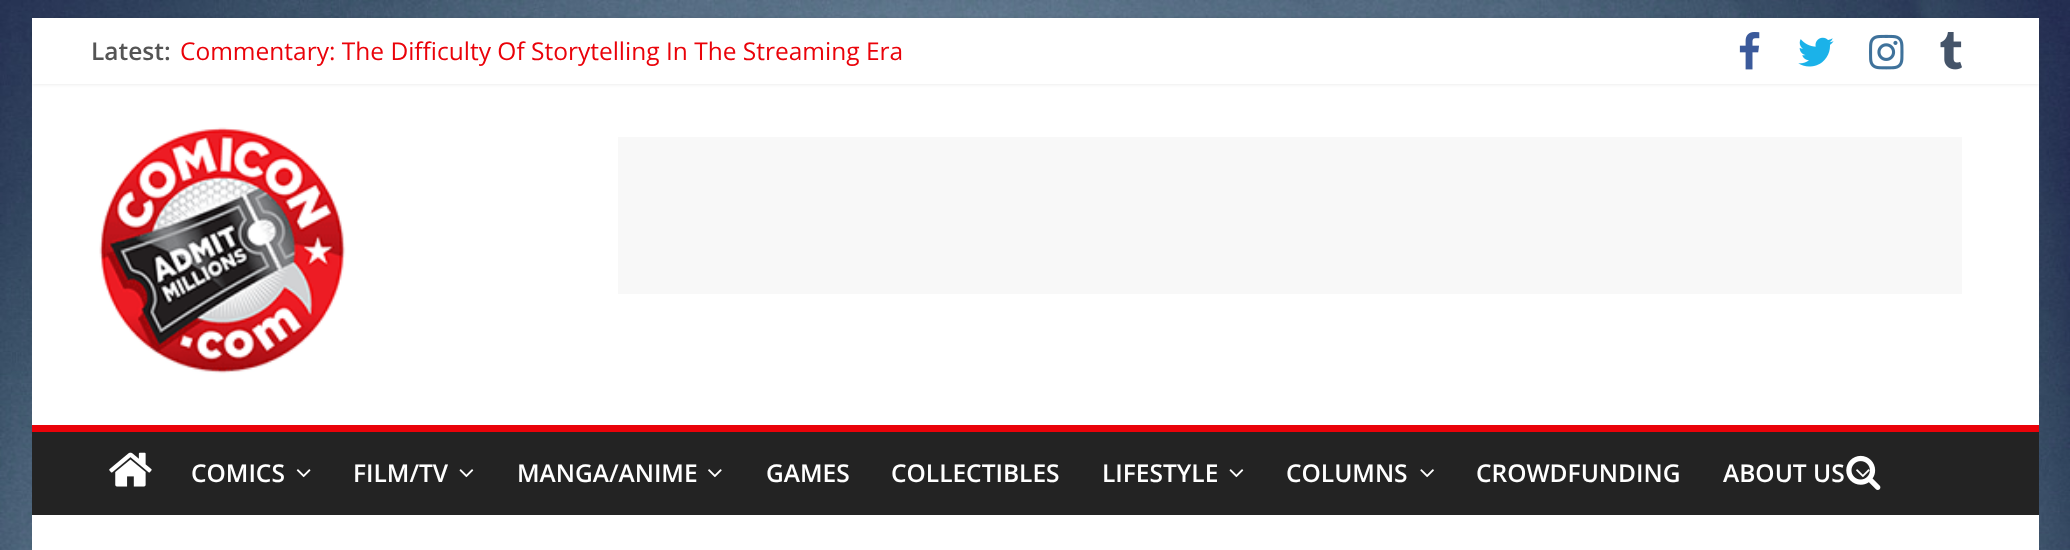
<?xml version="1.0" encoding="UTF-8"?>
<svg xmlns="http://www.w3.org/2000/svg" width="2070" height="550">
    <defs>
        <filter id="blur1" x="-50%" y="-200%" width="200%" height="500%"><feGaussianBlur stdDeviation="2"/></filter>
    </defs>
    <rect width="100%" height="100%" fill="#FFFFFF"/>
    <image x="0" y="0" width="2070" height="550" href="img_01.png"/>
    <rect x="32" y="84" width="2007" height="341" fill="#FFFFFF"/>
    <rect x="32" y="18" width="2007" height="66" fill="#000000" fill-opacity="0.1" filter="url(#blur1)"/>
    <rect x="32" y="18" width="2007" height="66" fill="#FFFFFF"/>
    <text x="91" y="60" font-family="Open Sans" font-size="24.5" font-weight="600" fill="#555555">Latest:</text>
    <text x="180" y="60" font-family="Open Sans" font-size="24.5" fill="#EA0209">Commentary: The Difficulty Of Storytelling In The Streaming Era</text>
    <image x="1739" y="32" width="21" height="38" href="img_02.png"/>
    <image x="1798" y="37" width="36" height="30" href="img_03.png"/>
    <image x="1869" y="34" width="35" height="36" href="img_04.png"/>
    <image x="1940" y="32" width="22" height="38" href="img_05.png"/>
    <image x="99" y="127" width="247" height="247" href="img_06.png"/>
    <rect x="618" y="137" width="1344" height="157" fill="#F8F8F8"/>
    <rect x="32" y="432" width="2007" height="83" fill="#232323"/>
    <rect x="32" y="425" width="2007" height="7" fill="#EA0209"/>
    <image x="109" y="452" width="43" height="35" href="img_07.png"/>
    <text x="191" y="482" font-family="Open Sans" font-size="24.5" font-weight="600" fill="#FFFFFF">COMICS</text>
    <image x="296" y="469" width="15" height="9" href="img_08.png"/>
    <text x="353" y="482" font-family="Open Sans" font-size="24.5" font-weight="600" fill="#FFFFFF">FILM/TV</text>
    <image x="459" y="469" width="15" height="9" href="img_09.png"/>
    <text x="517" y="482" font-family="Open Sans" font-size="24.5" font-weight="600" fill="#FFFFFF">MANGA/ANIME</text>
    <image x="708" y="469" width="14" height="9" href="img_10.png"/>
    <text x="766" y="482" font-family="Open Sans" font-size="24.5" font-weight="600" fill="#FFFFFF">GAMES</text>
    <text x="891" y="482" font-family="Open Sans" font-size="24.5" font-weight="600" fill="#FFFFFF">COLLECTIBLES</text>
    <text x="1102" y="482" font-family="Open Sans" font-size="24.5" font-weight="600" fill="#FFFFFF">LIFESTYLE</text>
    <image x="1229" y="469" width="15" height="9" href="img_09.png"/>
    <text x="1286" y="482" font-family="Open Sans" font-size="24.5" font-weight="600" fill="#FFFFFF">COLUMNS</text>
    <image x="1420" y="469" width="14" height="9" href="img_11.png"/>
    <text x="1476" y="482" font-family="Open Sans" font-size="24.5" font-weight="600" fill="#FFFFFF">CROWDFUNDING</text>
    <text x="1723" y="482" font-family="Open Sans" font-size="24.5" font-weight="600" fill="#FFFFFF">ABOUT US</text>
    <image x="1856" y="469" width="14" height="9" href="img_10.png"/>
    <image x="1846" y="455" width="35" height="35" href="img_12.png"/>
    <rect x="32" y="515" width="2007" height="35" fill="#FFFFFF"/>
</svg>
